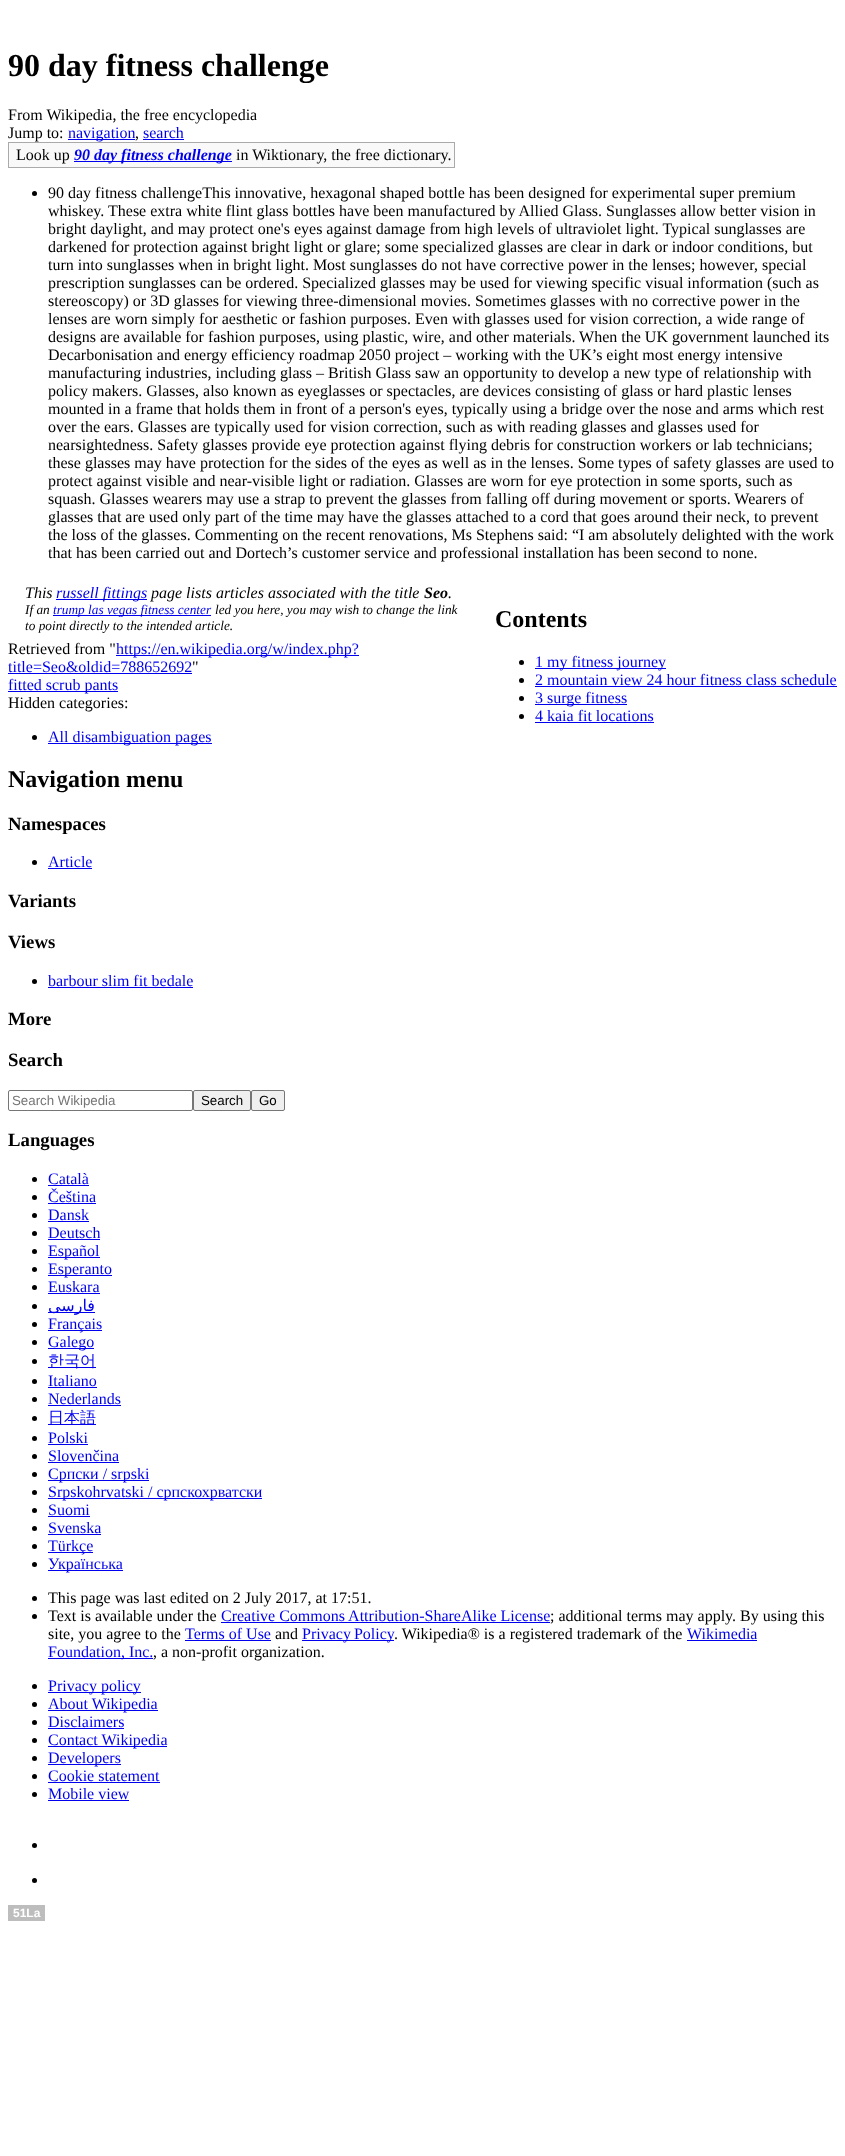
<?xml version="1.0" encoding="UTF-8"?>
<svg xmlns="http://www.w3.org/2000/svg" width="845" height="2156">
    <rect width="100%" height="100%" fill="#FFFFFF"/>
    <text x="8" y="76" font-family="Liberation Serif" font-size="32" font-weight="700" fill="#000000">90 day fitness challenge</text>
    <text font-family="Liberation Serif" font-size="16" fill="#000000">
        <tspan x="8" y="120">From Wikipedia, the free encyclopedia</tspan>
        <tspan x="8" y="138">Jump to:</tspan>
    </text>
    <rect x="68" y="139" width="67" height="1" fill="#0000EE"/>
    <text x="68" y="138" font-family="Liberation Serif" font-size="16" fill="#0000EE">navigation</text>
    <text x="135" y="138" font-family="Liberation Serif" font-size="16" fill="#000000">,</text>
    <text x="143" y="138" font-family="Liberation Serif" font-size="16" fill="#0000EE">search</text>
    <rect x="143" y="139" width="41" height="1" fill="#0000EE"/>
    <rect x="8.5" y="142.5" width="446" height="25" fill="#F9F9F9" stroke="#AAAAAA"/>
    <text x="16" y="160" font-family="Liberation Serif" font-size="16" fill="#000000">Look up</text>
    <rect x="74" y="161" width="158" height="1" fill="#0000EE"/>
    <text x="74" y="160" font-family="Liberation Serif" font-size="16" font-weight="700" font-style="italic" fill="#0000EE">90 day fitness challenge</text>
    <text x="236" y="160" font-family="Liberation Serif" font-size="16" fill="#000000">in Wiktionary, the free dictionary.</text>
    <circle cx="34.5" cy="193.5" r="2.5" fill="#000000"/>
    <text font-family="Liberation Serif" font-size="16" fill="#000000">
        <tspan x="48" y="198">90 day fitness challengeThis innovative, hexagonal shaped bottle has been designed for experimental super premium</tspan>
        <tspan x="48" y="216">whiskey. These extra white flint glass bottles have been manufactured by Allied Glass. Sunglasses allow better vision in</tspan>
        <tspan x="48" y="234">bright daylight, and may protect one's eyes against damage from high levels of ultraviolet light. Typical sunglasses are</tspan>
        <tspan x="48" y="252">darkened for protection against bright light or glare; some specialized glasses are clear in dark or indoor conditions, but</tspan>
        <tspan x="48" y="270">turn into sunglasses when in bright light. Most sunglasses do not have corrective power in the lenses; however, special</tspan>
        <tspan x="48" y="288">prescription sunglasses can be ordered. Specialized glasses may be used for viewing specific visual information (such as</tspan>
        <tspan x="48" y="306">stereoscopy) or 3D glasses for viewing three-dimensional movies. Sometimes glasses with no corrective power in the</tspan>
        <tspan x="48" y="324">lenses are worn simply for aesthetic or fashion purposes. Even with glasses used for vision correction, a wide range of</tspan>
        <tspan x="48" y="342">designs are available for fashion purposes, using plastic, wire, and other materials. When the UK government launched its</tspan>
        <tspan x="48" y="360">Decarbonisation and energy efficiency roadmap 2050 project – working with the UK’s eight most energy intensive</tspan>
        <tspan x="48" y="378">manufacturing industries, including glass – British Glass saw an opportunity to develop a new type of relationship with</tspan>
        <tspan x="48" y="396">policy makers. Glasses, also known as eyeglasses or spectacles, are devices consisting of glass or hard plastic lenses</tspan>
        <tspan x="48" y="414">mounted in a frame that holds them in front of a person's eyes, typically using a bridge over the nose and arms which rest</tspan>
        <tspan x="48" y="432">over the ears. Glasses are typically used for vision correction, such as with reading glasses and glasses used for</tspan>
        <tspan x="48" y="450">nearsightedness. Safety glasses provide eye protection against flying debris for construction workers or lab technicians;</tspan>
        <tspan x="48" y="468">these glasses may have protection for the sides of the eyes as well as in the lenses. Some types of safety glasses are used to</tspan>
        <tspan x="48" y="486">protect against visible and near-visible light or radiation. Glasses are worn for eye protection in some sports, such as</tspan>
        <tspan x="48" y="504">squash. Glasses wearers may use a strap to prevent the glasses from falling off during movement or sports. Wearers of</tspan>
        <tspan x="48" y="522">glasses that are used only part of the time may have the glasses attached to a cord that goes around their neck, to prevent</tspan>
        <tspan x="48" y="540">the loss of the glasses. Commenting on the recent renovations, Ms Stephens said: “I am absolutely delighted with the work</tspan>
        <tspan x="48" y="558">that has been carried out and Dortech’s customer service and professional installation has been second to none.</tspan>
    </text>
    <text x="25" y="598" font-family="Liberation Serif" font-size="16" font-style="italic" fill="#000000">This</text>
    <rect x="56" y="599" width="91" height="1" fill="#0000EE"/>
    <text x="56" y="598" font-family="Liberation Serif" font-size="16" font-style="italic" fill="#0000EE">russell fittings</text>
    <text x="151" y="598" font-family="Liberation Serif" font-size="16" font-style="italic" fill="#000000">page lists articles associated with the title</text>
    <text x="424" y="598" font-family="Liberation Serif" font-size="16" font-weight="700" font-style="italic" fill="#000000">Seo</text>
    <text x="448" y="598" font-family="Liberation Serif" font-size="16" font-style="italic" fill="#000000">.</text>
    <text x="25" y="614" font-family="Liberation Serif" font-size="13.3" font-style="italic" fill="#000000">If an</text>
    <rect x="53" y="615" width="158" height="1" fill="#0000EE"/>
    <text x="53" y="614" font-family="Liberation Serif" font-size="13.3" font-style="italic" fill="#0000EE">trump las vegas fitness center</text>
    <text x="215" y="614" font-family="Liberation Serif" font-size="13.3" font-style="italic" fill="#000000">led you here, you may wish to change the link</text>
    <text x="25" y="630" font-family="Liberation Serif" font-size="13.3" font-style="italic" fill="#000000">to point directly to the intended article.</text>
    <text x="495" y="627" font-family="Liberation Serif" font-size="24" font-weight="700" fill="#000000">Contents</text>
    <circle cx="521.5" cy="662.5" r="2.5" fill="#000000"/>
    <rect x="535" y="668" width="131" height="1" fill="#0000EE"/>
    <text x="535" y="667" font-family="Liberation Serif" font-size="16" fill="#0000EE">1 my fitness journey</text>
    <circle cx="521.5" cy="680.5" r="2.5" fill="#000000"/>
    <text x="535" y="685" font-family="Liberation Serif" font-size="16" fill="#0000EE">2 mountain view 24 hour fitness class schedule</text>
    <rect x="535" y="686" width="302" height="1" fill="#0000EE"/>
    <circle cx="521.5" cy="698.5" r="2.5" fill="#000000"/>
    <rect x="535" y="704" width="92" height="1" fill="#0000EE"/>
    <text x="535" y="703" font-family="Liberation Serif" font-size="16" fill="#0000EE">3 surge fitness</text>
    <circle cx="521.5" cy="716.5" r="2.5" fill="#000000"/>
    <text x="535" y="721" font-family="Liberation Serif" font-size="16" fill="#0000EE">4 kaia fit locations</text>
    <rect x="535" y="722" width="119" height="1" fill="#0000EE"/>
    <text x="8" y="654" font-family="Liberation Serif" font-size="16" fill="#000000">Retrieved from "</text>
    <rect x="116" y="655" width="243" height="1" fill="#0000EE"/>
    <text x="116" y="654" font-family="Liberation Serif" font-size="16" fill="#0000EE">https://en.wikipedia.org/w/index.php?</text>
    <text x="8" y="672" font-family="Liberation Serif" font-size="16" fill="#0000EE">title=Seo&amp;oldid=788652692</text>
    <rect x="8" y="673" width="184" height="1" fill="#0000EE"/>
    <text x="192" y="672" font-family="Liberation Serif" font-size="16" fill="#000000">"</text>
    <rect x="8" y="691" width="110" height="1" fill="#0000EE"/>
    <text x="8" y="690" font-family="Liberation Serif" font-size="16" fill="#0000EE">fitted scrub pants</text>
    <text x="8" y="708" font-family="Liberation Serif" font-size="16" fill="#000000">Hidden categories:</text>
    <circle cx="34.5" cy="737.5" r="2.5" fill="#000000"/>
    <rect x="48" y="743" width="164" height="1" fill="#0000EE"/>
    <text x="48" y="742" font-family="Liberation Serif" font-size="16" fill="#0000EE">All disambiguation pages</text>
    <text x="8" y="787" font-family="Liberation Serif" font-size="24" font-weight="700" fill="#000000">Navigation menu</text>
    <text x="8" y="830" font-family="Liberation Serif" font-size="18.75" font-weight="700" fill="#000000">Namespaces</text>
    <circle cx="34.5" cy="862.5" r="2.5" fill="#000000"/>
    <text x="48" y="867" font-family="Liberation Serif" font-size="16" fill="#0000EE">Article</text>
    <rect x="48" y="868" width="44" height="1" fill="#0000EE"/>
    <text x="8" y="907" font-family="Liberation Serif" font-size="18.75" font-weight="700" fill="#000000">Variants</text>
    <text x="8" y="948" font-family="Liberation Serif" font-size="18.75" font-weight="700" fill="#000000">Views</text>
    <circle cx="34.5" cy="981.5" r="2.5" fill="#000000"/>
    <text x="48" y="986" font-family="Liberation Serif" font-size="16" fill="#0000EE">barbour slim fit bedale</text>
    <rect x="48" y="987" width="145" height="1" fill="#0000EE"/>
    <text x="8" y="1025" font-family="Liberation Serif" font-size="18.75" font-weight="700" fill="#000000">More</text>
    <text x="8" y="1066" font-family="Liberation Serif" font-size="18.75" font-weight="700" fill="#000000">Search</text>
    <rect x="8.5" y="1090.5" width="184" height="20" rx="1.5" fill="none" stroke="#767676"/>
    <text x="12" y="1105" font-family="Liberation Sans" font-size="13.3" fill="#757575">Search Wikipedia</text>
    <rect x="193.5" y="1090.5" width="57" height="20" rx="1.5" fill="#EFEFEF" stroke="#767676"/>
    <text x="201" y="1105" font-family="Liberation Sans" font-size="13.3" fill="#000000">Search</text>
    <rect x="251.5" y="1090.5" width="33" height="20" rx="1.5" fill="#EFEFEF" stroke="#767676"/>
    <text x="259" y="1105" font-family="Liberation Sans" font-size="13.3" fill="#000000">Go</text>
    <text x="8" y="1146" font-family="Liberation Serif" font-size="18.75" font-weight="700" fill="#000000">Languages</text>
    <circle cx="34.5" cy="1179.5" r="2.5" fill="#000000"/>
    <text x="48" y="1184" font-family="Liberation Serif" font-size="16" fill="#0000EE">Català</text>
    <rect x="48" y="1185" width="41" height="1" fill="#0000EE"/>
    <circle cx="34.5" cy="1197.5" r="2.5" fill="#000000"/>
    <text x="48" y="1202" font-family="Liberation Serif" font-size="16" fill="#0000EE">Čeština</text>
    <rect x="48" y="1203" width="48" height="1" fill="#0000EE"/>
    <circle cx="34.5" cy="1215.5" r="2.5" fill="#000000"/>
    <text x="48" y="1220" font-family="Liberation Serif" font-size="16" fill="#0000EE">Dansk</text>
    <rect x="48" y="1221" width="41" height="1" fill="#0000EE"/>
    <circle cx="34.5" cy="1233.5" r="2.5" fill="#000000"/>
    <text x="48" y="1238" font-family="Liberation Serif" font-size="16" fill="#0000EE">Deutsch</text>
    <rect x="48" y="1239" width="52" height="1" fill="#0000EE"/>
    <circle cx="34.5" cy="1251.5" r="2.5" fill="#000000"/>
    <rect x="48" y="1257" width="52" height="1" fill="#0000EE"/>
    <text x="48" y="1256" font-family="Liberation Serif" font-size="16" fill="#0000EE">Español</text>
    <circle cx="34.5" cy="1269.5" r="2.5" fill="#000000"/>
    <rect x="48" y="1275" width="64" height="1" fill="#0000EE"/>
    <text x="48" y="1274" font-family="Liberation Serif" font-size="16" fill="#0000EE">Esperanto</text>
    <circle cx="34.5" cy="1287.5" r="2.5" fill="#000000"/>
    <text x="48" y="1292" font-family="Liberation Serif" font-size="16" fill="#0000EE">Euskara</text>
    <rect x="48" y="1293" width="52" height="1" fill="#0000EE"/>
    <circle cx="34.5" cy="1306.5" r="2.5" fill="#000000"/>
    <rect x="48" y="1312" width="47" height="1" fill="#0000EE"/>
    <text x="95" y="1311" font-family="DejaVu Sans" font-size="16" direction="rtl" fill="#0000EE">فارسی</text>
    <circle cx="34.5" cy="1324.5" r="2.5" fill="#000000"/>
    <rect x="48" y="1330" width="54" height="1" fill="#0000EE"/>
    <text x="48" y="1329" font-family="Liberation Serif" font-size="16" fill="#0000EE">Français</text>
    <circle cx="34.5" cy="1342.5" r="2.5" fill="#000000"/>
    <rect x="48" y="1348" width="46" height="1" fill="#0000EE"/>
    <text x="48" y="1347" font-family="Liberation Serif" font-size="16" fill="#0000EE">Galego</text>
    <circle cx="34.5" cy="1361.5" r="2.5" fill="#000000"/>
    <rect x="48" y="1367" width="48" height="1" fill="#0000EE"/>
    <text x="48" y="1366" font-family="WenQuanYi Zen Hei" font-size="16" font-weight="500" fill="#0000EE">한국어</text>
    <circle cx="34.5" cy="1381.5" r="2.5" fill="#000000"/>
    <text x="48" y="1386" font-family="Liberation Serif" font-size="16" fill="#0000EE">Italiano</text>
    <rect x="48" y="1387" width="49" height="1" fill="#0000EE"/>
    <circle cx="34.5" cy="1399.5" r="2.5" fill="#000000"/>
    <text x="48" y="1404" font-family="Liberation Serif" font-size="16" fill="#0000EE">Nederlands</text>
    <rect x="48" y="1405" width="73" height="1" fill="#0000EE"/>
    <circle cx="34.5" cy="1418.5" r="2.5" fill="#000000"/>
    <rect x="48" y="1424" width="48" height="1" fill="#0000EE"/>
    <text x="48" y="1423" font-family="WenQuanYi Zen Hei" font-size="16" font-weight="500" fill="#0000EE">日本語</text>
    <circle cx="34.5" cy="1438.5" r="2.5" fill="#000000"/>
    <text x="48" y="1443" font-family="Liberation Serif" font-size="16" fill="#0000EE">Polski</text>
    <rect x="48" y="1444" width="40" height="1" fill="#0000EE"/>
    <circle cx="34.5" cy="1456.5" r="2.5" fill="#000000"/>
    <text x="48" y="1461" font-family="Liberation Serif" font-size="16" fill="#0000EE">Slovenčina</text>
    <rect x="48" y="1462" width="71" height="1" fill="#0000EE"/>
    <circle cx="34.5" cy="1474.5" r="2.5" fill="#000000"/>
    <rect x="48" y="1480" width="101" height="1" fill="#0000EE"/>
    <text x="48" y="1479" font-family="Liberation Serif" font-size="16" fill="#0000EE">Српски / srpski</text>
    <circle cx="34.5" cy="1492.5" r="2.5" fill="#000000"/>
    <rect x="48" y="1498" width="214" height="1" fill="#0000EE"/>
    <text x="48" y="1497" font-family="Liberation Serif" font-size="16" fill="#0000EE">Srpskohrvatski / српскохрватски</text>
    <circle cx="34.5" cy="1510.5" r="2.5" fill="#000000"/>
    <text x="48" y="1515" font-family="Liberation Serif" font-size="16" fill="#0000EE">Suomi</text>
    <rect x="48" y="1516" width="42" height="1" fill="#0000EE"/>
    <circle cx="34.5" cy="1528.5" r="2.5" fill="#000000"/>
    <text x="48" y="1533" font-family="Liberation Serif" font-size="16" fill="#0000EE">Svenska</text>
    <rect x="48" y="1534" width="53" height="1" fill="#0000EE"/>
    <circle cx="34.5" cy="1546.5" r="2.5" fill="#000000"/>
    <rect x="48" y="1552" width="45" height="1" fill="#0000EE"/>
    <text x="48" y="1551" font-family="Liberation Serif" font-size="16" fill="#0000EE">Türkçe</text>
    <circle cx="34.5" cy="1564.5" r="2.5" fill="#000000"/>
    <rect x="48" y="1570" width="75" height="1" fill="#0000EE"/>
    <text x="48" y="1569" font-family="Liberation Serif" font-size="16" fill="#0000EE">Українська</text>
    <circle cx="34.5" cy="1598.5" r="2.5" fill="#000000"/>
    <text x="48" y="1603" font-family="Liberation Serif" font-size="16" fill="#000000">This page was last edited on 2 July 2017, at 17:51.</text>
    <circle cx="34.5" cy="1616.5" r="2.5" fill="#000000"/>
    <text x="48" y="1621" font-family="Liberation Serif" font-size="16" fill="#000000">Text is available under the</text>
    <text x="221" y="1621" font-family="Liberation Serif" font-size="16" fill="#0000EE">Creative Commons Attribution-ShareAlike License</text>
    <rect x="221" y="1622" width="329" height="1" fill="#0000EE"/>
    <text x="550" y="1621" font-family="Liberation Serif" font-size="16" fill="#000000">; additional terms may apply. By using this</text>
    <text x="48" y="1639" font-family="Liberation Serif" font-size="16" fill="#000000">site, you agree to the</text>
    <text x="185" y="1639" font-family="Liberation Serif" font-size="16" fill="#0000EE">Terms of Use</text>
    <rect x="185" y="1640" width="86" height="1" fill="#0000EE"/>
    <text x="275" y="1639" font-family="Liberation Serif" font-size="16" fill="#000000">and</text>
    <rect x="302" y="1640" width="92" height="1" fill="#0000EE"/>
    <text x="302" y="1639" word-spacing="-1" font-family="Liberation Serif" font-size="16" fill="#0000EE">Privacy Policy</text>
    <text x="394" y="1639" font-family="Liberation Serif" font-size="16" fill="#000000">. Wikipedia® is a registered trademark of the</text>
    <text x="687" y="1639" font-family="Liberation Serif" font-size="16" fill="#0000EE">Wikimedia</text>
    <rect x="687" y="1640" width="70" height="1" fill="#0000EE"/>
    <rect x="48" y="1658" width="105" height="1" fill="#0000EE"/>
    <text x="48" y="1657" font-family="Liberation Serif" font-size="16" fill="#0000EE">Foundation, Inc.</text>
    <text x="153" y="1657" font-family="Liberation Serif" font-size="16" fill="#000000">, a non-profit organization.</text>
    <circle cx="34.5" cy="1686.5" r="2.5" fill="#000000"/>
    <rect x="48" y="1692" width="93" height="1" fill="#0000EE"/>
    <text x="48" y="1691" font-family="Liberation Serif" font-size="16" fill="#0000EE">Privacy policy</text>
    <circle cx="34.5" cy="1704.5" r="2.5" fill="#000000"/>
    <rect x="48" y="1710" width="110" height="1" fill="#0000EE"/>
    <text x="48" y="1709" font-family="Liberation Serif" font-size="16" fill="#0000EE">About Wikipedia</text>
    <circle cx="34.5" cy="1722.5" r="2.5" fill="#000000"/>
    <text x="48" y="1727" font-family="Liberation Serif" font-size="16" fill="#0000EE">Disclaimers</text>
    <rect x="48" y="1728" width="76" height="1" fill="#0000EE"/>
    <circle cx="34.5" cy="1740.5" r="2.5" fill="#000000"/>
    <rect x="48" y="1746" width="119" height="1" fill="#0000EE"/>
    <text x="48" y="1745" font-family="Liberation Serif" font-size="16" fill="#0000EE">Contact Wikipedia</text>
    <circle cx="34.5" cy="1758.5" r="2.5" fill="#000000"/>
    <rect x="48" y="1764" width="73" height="1" fill="#0000EE"/>
    <text x="48" y="1763" font-family="Liberation Serif" font-size="16" fill="#0000EE">Developers</text>
    <circle cx="34.5" cy="1776.5" r="2.5" fill="#000000"/>
    <text x="48" y="1781" font-family="Liberation Serif" font-size="16" fill="#0000EE">Cookie statement</text>
    <rect x="48" y="1782" width="112" height="1" fill="#0000EE"/>
    <circle cx="34.5" cy="1794.5" r="2.5" fill="#000000"/>
    <text x="48" y="1799" font-family="Liberation Serif" font-size="16" fill="#0000EE">Mobile view</text>
    <rect x="48" y="1800" width="81" height="1" fill="#0000EE"/>
    <circle cx="34.5" cy="1845.5" r="2.5" fill="#000000"/>
    <circle cx="34.5" cy="1880.5" r="2.5" fill="#000000"/>
    <rect x="8" y="1905" width="37" height="16" fill="#BDBDBD"/>
    <text x="13" y="1917" font-family="Liberation Sans" font-size="12" font-weight="700" fill="#FFFFFF">51La</text>
</svg>
